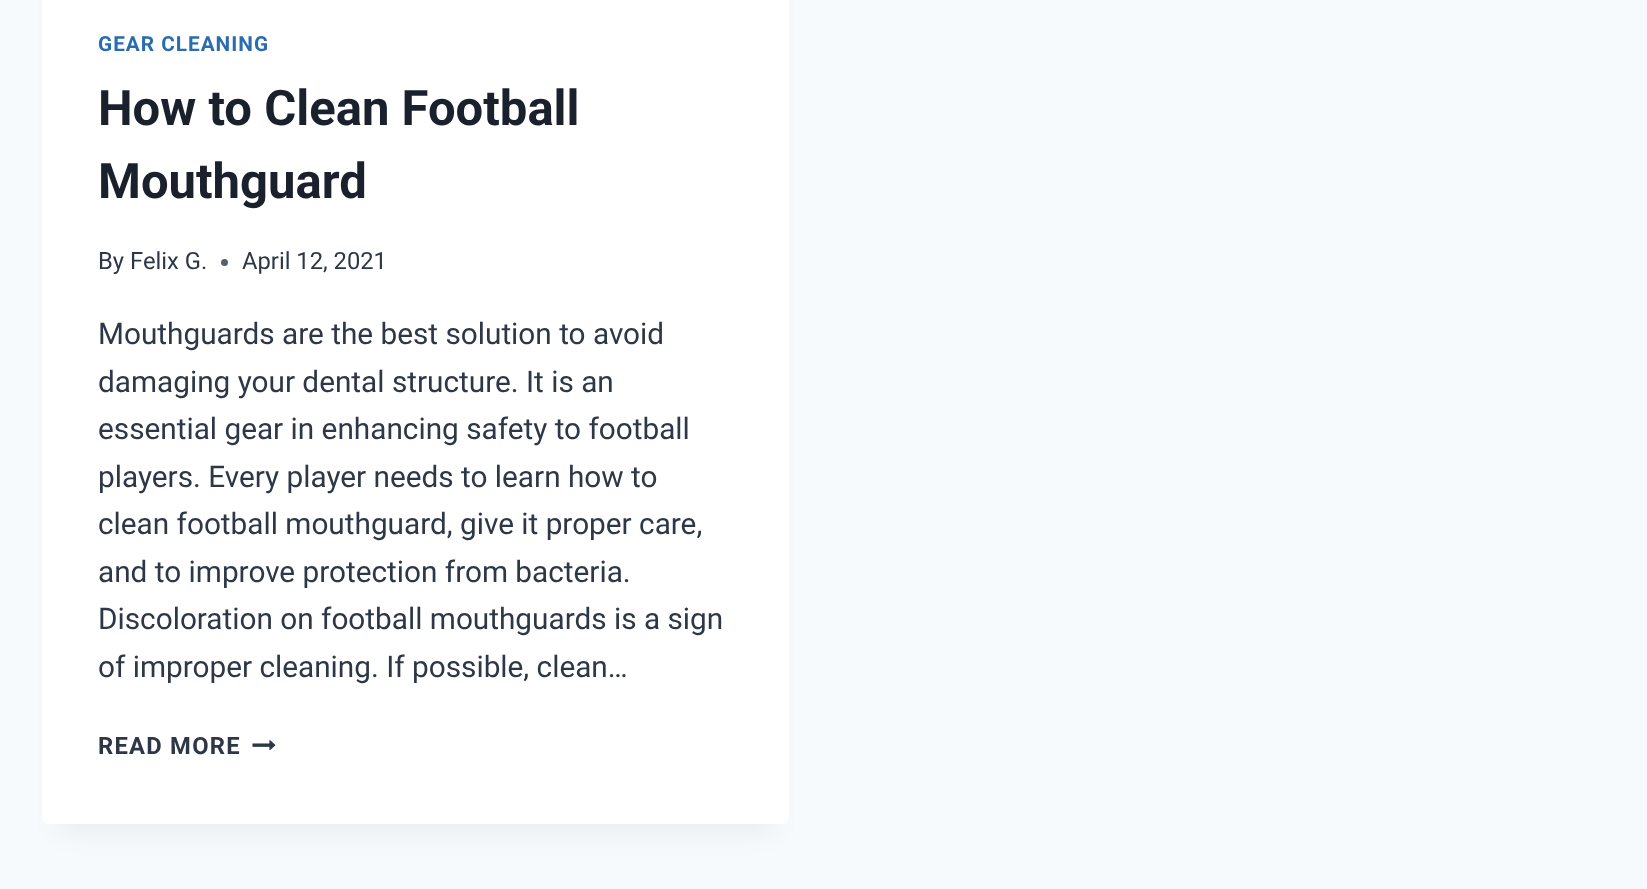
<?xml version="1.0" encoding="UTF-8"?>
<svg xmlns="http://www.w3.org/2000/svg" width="1647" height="889">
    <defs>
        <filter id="blur1" x="-50%" y="-200%" width="200%" height="500%"><feGaussianBlur stdDeviation="13"/></filter>
    </defs>
    <rect width="100%" height="100%" fill="#F7FAFC"/>
    <rect x="60" y="-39" width="712" height="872" fill="#000000" fill-opacity="0.05" filter="url(#blur1)"/>
    <rect x="42" y="-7" width="747" height="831" rx="7" fill="#FFFFFF"/>
    <text x="98" y="51" font-family="Roboto" font-size="20.75" font-weight="700" letter-spacing="1" fill="#2B6CB0">GEAR CLEANING</text>
    <text font-family="Roboto" font-size="49" font-weight="700" fill="#1A202C">
        <tspan x="98" y="125">How to Clean Football</tspan>
        <tspan x="98" y="198">Mouthguard</tspan>
    </text>
    <text x="98" y="269" font-family="Roboto" font-size="23.75" fill="#2D3748">By</text>
    <text x="130" y="269" font-family="Roboto" font-size="23.75" fill="#2D3748">Felix G.</text>
    <circle cx="224.5" cy="262.5" r="3.5" fill="#575F6D"/>
    <text x="242" y="269" font-family="Roboto" font-size="23.75" fill="#2D3748">April 12, 2021</text>
    <text font-family="Roboto" font-size="29.75" fill="#2D3748">
        <tspan x="98" y="344">Mouthguards are the best solution to avoid</tspan>
        <tspan x="98" y="392">damaging your dental structure. It is an</tspan>
        <tspan x="98" y="439">essential gear in enhancing safety to football</tspan>
        <tspan x="98" y="487">players. Every player needs to learn how to</tspan>
        <tspan x="98" y="534">clean football mouthguard, give it proper care,</tspan>
        <tspan x="98" y="582">and to improve protection from bacteria.</tspan>
        <tspan x="98" y="629">Discoloration on football mouthguards is a sign</tspan>
        <tspan x="98" y="677">of improper cleaning. If possible, clean…</tspan>
    </text>
    <text x="98" y="754" font-family="Roboto" font-size="23.75" font-weight="700" letter-spacing="1.25" fill="#2D3748">READ MORE</text>
    <image x="252" y="740" width="24" height="11" href="img_01.png"/>
</svg>
